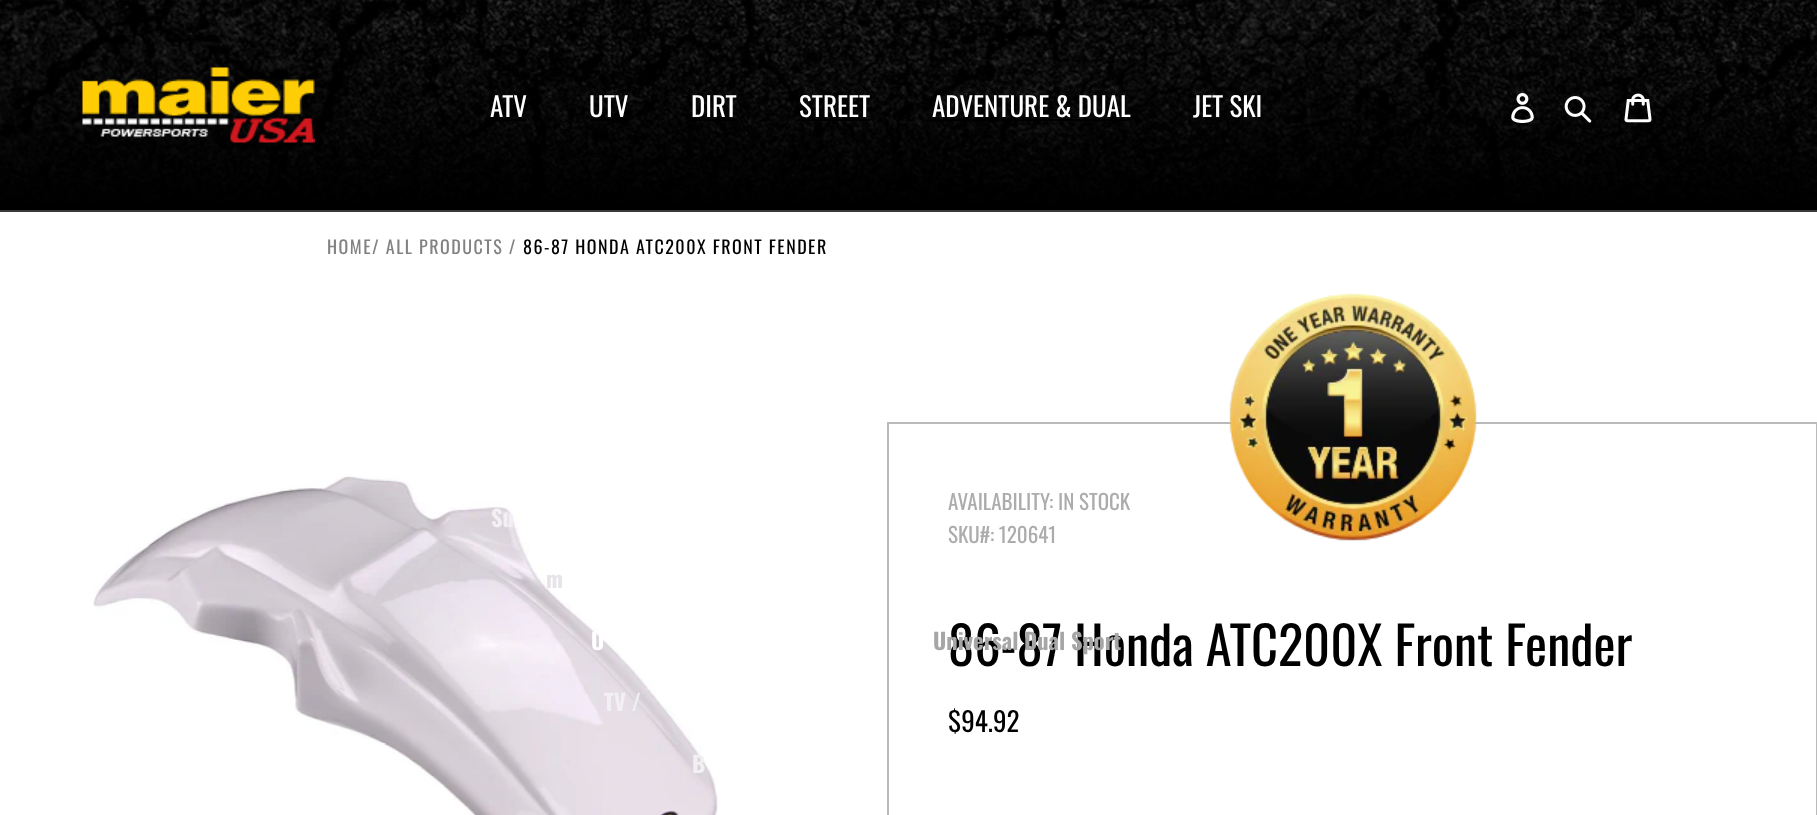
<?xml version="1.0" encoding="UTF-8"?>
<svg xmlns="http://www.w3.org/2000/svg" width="1817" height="815">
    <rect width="100%" height="100%" fill="#FFFFFF"/>
    <image x="0" y="0" width="1817" height="210" href="img_01.png"/>
    <rect x="0" y="210" width="1817" height="2" fill="#3A3A3A"/>
    <image x="82" y="67" width="233" height="76" href="img_02.png"/>
    <text x="490" y="117" font-family="Oswald" font-size="27" fill="#FFFFFF">ATV</text>
    <rect x="504" y="119" width="23" height="2" fill="#000000"/>
    <image x="93" y="476" width="625" height="339" href="img_06.png"/>
    <text x="491" y="527" font-family="Oswald" font-size="22.5" font-weight="700" fill="#F3F0F3">Su</text>
    <text x="546" y="588" font-family="Oswald" font-size="22.5" font-weight="700" fill="#E7E3E9">m</text>
    <text x="589" y="117" font-family="Oswald" font-size="27" fill="#FFFFFF">UTV</text>
    <rect x="590" y="119" width="39" height="2" fill="#000000"/>
    <text x="591" y="650" font-family="Oswald" font-size="22.5" font-weight="700" fill="#FFFFFF">U</text>
    <text x="604" y="711" font-family="Oswald" font-size="22.5" font-weight="700" fill="#F3F0F3">TV /</text>
    <text x="691" y="117" font-family="Oswald" font-size="27" fill="#FFFFFF">DIRT</text>
    <rect x="690" y="119" width="47" height="2" fill="#000000"/>
    <text x="692" y="773" font-family="Oswald" font-size="22.5" font-weight="700" fill="#F3F0F3">B</text>
    <text x="799" y="117" font-family="Oswald" font-size="27" fill="#FFFFFF">STREET</text>
    <rect x="798" y="119" width="72" height="2" fill="#000000"/>
    <text x="932" y="117" font-family="Oswald" font-size="27" fill="#FFFFFF">ADVENTURE &amp; DUAL</text>
    <rect x="932" y="119" width="199" height="2" fill="#000000"/>
    <rect x="888" y="423" width="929" height="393" fill="none" stroke="#BABABA" stroke-width="2"/>
    <text x="948" y="666" font-family="Oswald" font-size="52.5" fill="#000000">86-87 Honda ATC200X Front Fender</text>
    <text x="933" y="650" font-family="Oswald" font-size="22.5" font-weight="700" fill="#A6A6A6">Universal Dual Sport</text>
    <text x="1193" y="117" font-family="Oswald" font-size="27" fill="#FFFFFF">JET SKI</text>
    <image x="1511" y="93" width="23" height="30" href="img_03.png"/>
    <image x="1564" y="96" width="28" height="27" href="img_04.png"/>
    <image x="1624" y="93" width="28" height="30" href="img_05.png"/>
    <text x="327" y="254" font-family="Oswald" font-size="18" letter-spacing="1.5" fill="#828282">HOME/ ALL PRODUCTS /</text>
    <text x="523" y="254" font-family="Oswald" font-size="18" letter-spacing="1.5" fill="#000000">86-87 HONDA ATC200X FRONT FENDER</text>
    <image x="1229" y="293" width="248" height="248" href="img_07.png"/>
    <text font-family="Oswald" font-size="21" fill="#ACACAC">
        <tspan x="948" y="510">AVAILABILITY: IN STOCK</tspan>
        <tspan x="948" y="543">SKU#: 120641</tspan>
    </text>
    <text x="948" y="732" font-family="Oswald" font-size="27" fill="#000000">$94.92</text>
</svg>
